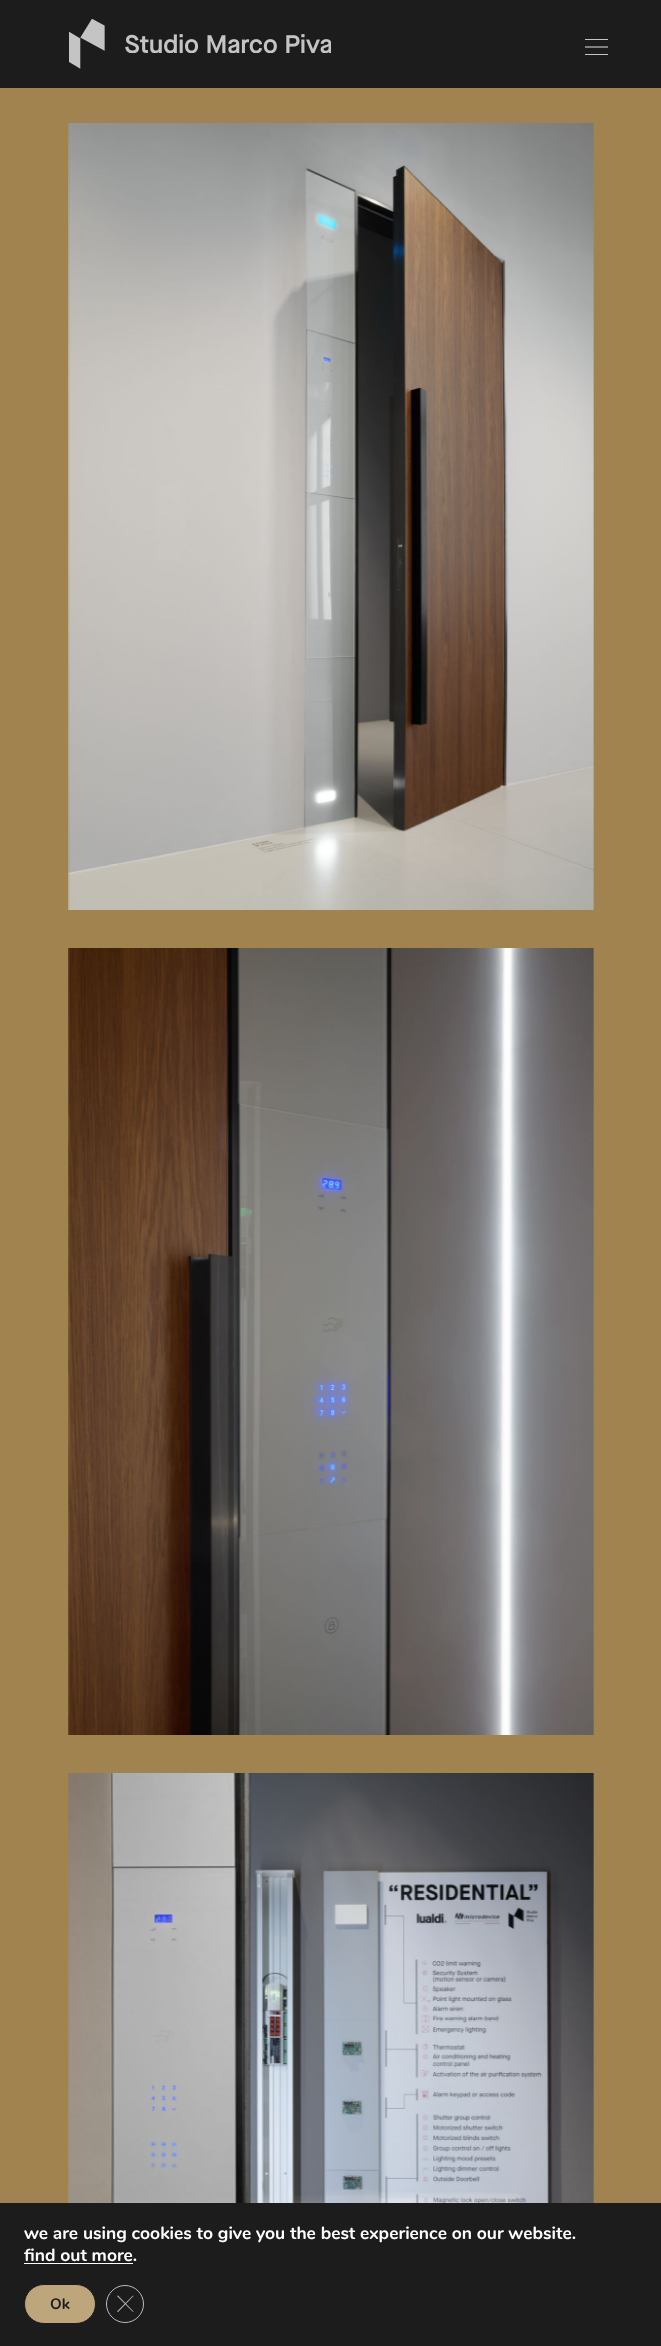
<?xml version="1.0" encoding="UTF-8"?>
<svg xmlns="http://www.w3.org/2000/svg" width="661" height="2346">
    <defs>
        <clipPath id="clip1"><rect x="568" y="26" width="40" height="40"/></clipPath>
    </defs>
    <rect width="100%" height="100%" fill="#A1834F"/>
    <rect x="0" y="0" width="661" height="88" fill="#1D1C1C"/>
    <image x="69" y="19" width="262" height="50" href="img_01.png"/>
    <rect x="585" y="39" width="23" height="1" fill="#C4C4C4"/>
    <g clip-path="url(#clip1)">
        <path d="M 585 47 H 610" fill="none" stroke="#C4C4C4" stroke-width="1.2"/>
    </g>
    <rect x="585" y="54" width="23" height="1" fill="#C4C4C4"/>
    <image x="68" y="123" width="526" height="787" href="img_02.png"/>
    <image x="68" y="948" width="526" height="787" href="img_03.png"/>
    <image x="68" y="1773" width="526" height="430" href="img_04.png"/>
    <rect x="0" y="2203" width="661" height="143" fill="#1D1C1C"/>
    <text font-family="Nunito" font-size="17.5" font-weight="700" fill="#FFFFFF">
        <tspan x="24" y="2239">we are using cookies to give you the best experience on our website.</tspan>
        <tspan x="24" y="2261">find out more.</tspan>
    </text>
    <rect x="24" y="2263" width="109" height="1" fill="#FFFFFF"/>
    <rect x="24.5" y="2284.5" width="71" height="39" rx="19.5" fill="#BDA57C" stroke="#1D1C1C"/>
    <text x="50" y="2309" font-family="Nunito" font-size="15" font-weight="700" fill="#1D1C1C">Ok</text>
    <circle cx="125" cy="2304" r="18.5" fill="none" stroke="#BBBBBB"/>
    <path d="M 133 2295.5 L 133.5 2296 L 118 2312 L 117 2311.5 Z" fill="#BBBBBB"/>
    <path d="M 117 2296 L 118 2295.5 L 133.5 2311.5 L 133 2312 Z" fill="#BBBBBB"/>
</svg>
